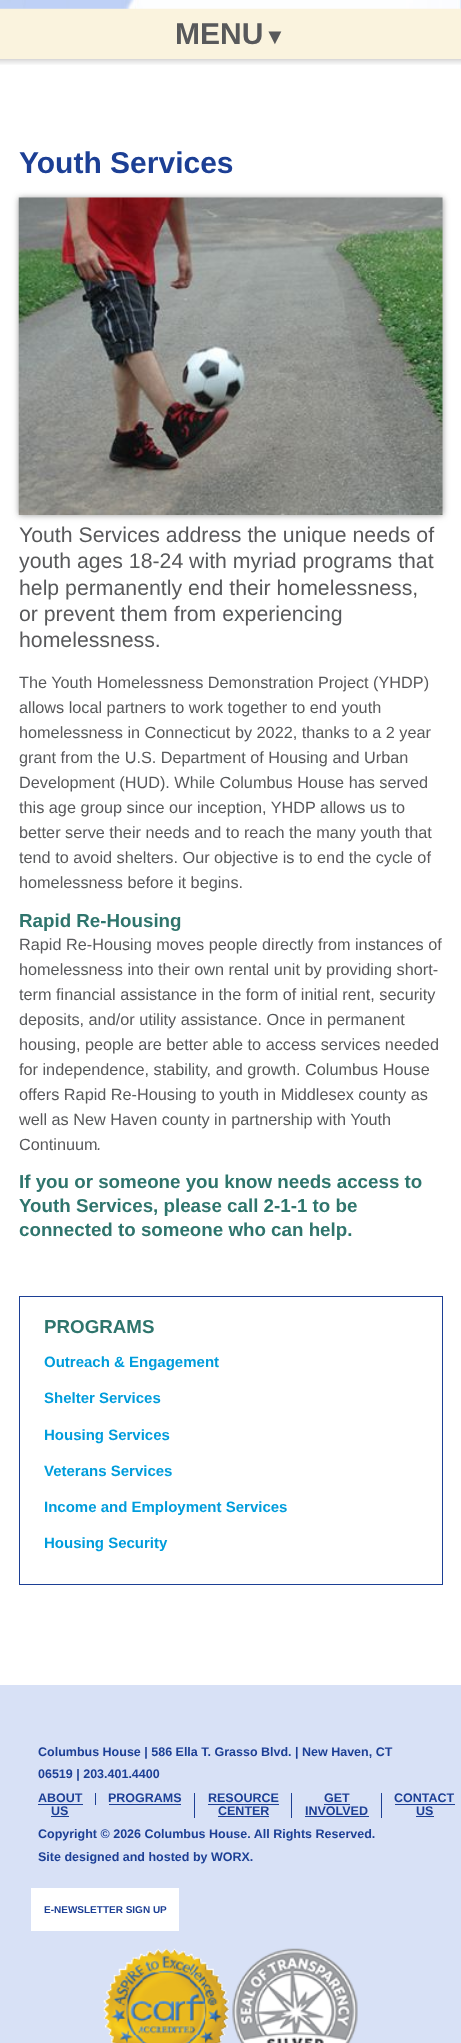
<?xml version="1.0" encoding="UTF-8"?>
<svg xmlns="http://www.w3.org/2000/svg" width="461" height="2043">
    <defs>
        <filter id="blur1" x="-50%" y="-200%" width="200%" height="500%"><feGaussianBlur stdDeviation="3"/></filter>
    </defs>
    <rect width="100%" height="100%" fill="#FAF3DE"/>
    <image x="0" y="0" width="461" height="9" href="img_01.png"/>
    <text x="175" y="44" font-family="Liberation Sans" font-size="30" font-weight="700" fill="#58595B">MENU</text>
    <text x="264" y="44" font-family="Liberation Sans" font-size="22" font-weight="700" fill="#58595B">▼</text>
    <rect x="0" y="59" width="461" height="1626" fill="#FFFFFF"/>
    <image x="0" y="59" width="461" height="6" href="img_02.png"/>
    <text x="19" y="173" font-family="Liberation Sans" font-size="30" font-weight="700" fill="#1C3F95">Youth Services</text>
    <rect x="19" y="198" width="424" height="317" fill="#999999" filter="url(#blur1)"/>
    <image x="18" y="197" width="425" height="318" href="img_03.png"/>
    <text font-family="Liberation Sans" font-size="21.25" fill="#58595B">
        <tspan x="19" y="542">Youth Services address the unique needs of</tspan>
        <tspan x="19" y="568">youth ages 18-24 with myriad programs that</tspan>
        <tspan x="19" y="595">help permanently end their homelessness,</tspan>
        <tspan x="19" y="621">or prevent them from experiencing</tspan>
        <tspan x="19" y="647">homelessness.</tspan>
    </text>
    <text font-family="Liberation Sans" font-size="16.25" fill="#58595B">
        <tspan x="19" y="688">The Youth Homelessness Demonstration Project (YHDP)</tspan>
        <tspan x="19" y="713">allows local partners to work together to end youth</tspan>
        <tspan x="19" y="738">homelessness in Connecticut by 2022, thanks to a 2 year</tspan>
        <tspan x="19" y="763">grant from the U.S. Department of Housing and Urban</tspan>
        <tspan x="19" y="788">Development (HUD). While Columbus House has served</tspan>
        <tspan x="19" y="813">this age group since our inception, YHDP allows us to</tspan>
        <tspan x="19" y="838">better serve their needs and to reach the many youth that</tspan>
        <tspan x="19" y="863">tend to avoid shelters. Our objective is to end the cycle of</tspan>
        <tspan x="19" y="888">homelessness before it begins.</tspan>
    </text>
    <text x="19" y="927" font-family="Liberation Sans" font-size="18.75" font-weight="700" fill="#2F756D">Rapid Re-Housing</text>
    <text font-family="Liberation Sans" font-size="16.25" fill="#58595B">
        <tspan x="19" y="950">Rapid Re-Housing moves people directly from instances of</tspan>
        <tspan x="19" y="975">homelessness into their own rental unit by providing short-</tspan>
        <tspan x="19" y="1000">term financial assistance in the form of initial rent, security</tspan>
        <tspan x="19" y="1025">deposits, and/or utility assistance. Once in permanent</tspan>
        <tspan x="19" y="1050">housing, people are better able to access services needed</tspan>
        <tspan x="19" y="1075">for independence, stability, and growth. Columbus House</tspan>
        <tspan x="19" y="1100">offers Rapid Re-Housing to youth in Middlesex county as</tspan>
        <tspan x="19" y="1125">well as New Haven county in partnership with Youth</tspan>
        <tspan x="19" y="1150">Continuum</tspan>
    </text>
    <text x="97" y="1150" font-family="Liberation Sans" font-size="16.25" font-style="italic" fill="#58595B">.</text>
    <text font-family="Liberation Sans" font-size="18.75" font-weight="700" fill="#2F756D">
        <tspan x="19" y="1188">If you or someone you know needs access to</tspan>
        <tspan x="19" y="1212">Youth Services, please call 2-1-1 to be</tspan>
        <tspan x="19" y="1236">connected to someone who can help.</tspan>
    </text>
    <rect x="19.5" y="1296.5" width="423" height="288" fill="none" stroke="#1C3F95"/>
    <text x="44" y="1333" font-family="Liberation Sans" font-size="18.75" font-weight="700" fill="#2F756D">PROGRAMS</text>
    <text x="44" y="1367" font-family="Liberation Sans" font-size="15" font-weight="700" fill="#009DDC">Outreach &amp; Engagement</text>
    <text x="44" y="1403" font-family="Liberation Sans" font-size="15" font-weight="700" fill="#009DDC">Shelter Services</text>
    <text x="44" y="1440" font-family="Liberation Sans" font-size="15" font-weight="700" fill="#009DDC">Housing Services</text>
    <text x="44" y="1476" font-family="Liberation Sans" font-size="15" font-weight="700" fill="#009DDC">Veterans Services</text>
    <text x="44" y="1512" font-family="Liberation Sans" font-size="15" font-weight="700" fill="#009DDC">Income and Employment Services</text>
    <text x="44" y="1548" font-family="Liberation Sans" font-size="15" font-weight="700" fill="#009DDC">Housing Security</text>
    <rect x="0" y="1685" width="461" height="358" fill="#D8E1F6"/>
    <text font-family="Liberation Sans" font-size="12.5" font-weight="700" fill="#1C3F95">
        <tspan x="38" y="1756">Columbus House | 586 Ella T. Grasso Blvd. | New Haven, CT</tspan>
        <tspan x="38" y="1778">06519 | 203.401.4400</tspan>
        <tspan x="38" y="1802">ABOUT</tspan>
    </text>
    <rect x="38" y="1804" width="45" height="1" fill="#1C3F95"/>
    <text x="51" y="1815" font-family="Liberation Sans" font-size="12.5" font-weight="700" fill="#1C3F95">US</text>
    <rect x="51" y="1816" width="18" height="1" fill="#1C3F95"/>
    <rect x="95" y="1793" width="1" height="12" fill="#1C3F95"/>
    <text x="108" y="1802" font-family="Liberation Sans" font-size="12.5" font-weight="700" fill="#1C3F95">PROGRAMS</text>
    <rect x="109" y="1804" width="72" height="1" fill="#1C3F95"/>
    <rect x="194" y="1793" width="1" height="25" fill="#1C3F95"/>
    <text x="208" y="1802" font-family="Liberation Sans" font-size="12.5" font-weight="700" fill="#1C3F95">RESOURCE</text>
    <rect x="208" y="1804" width="71" height="1" fill="#1C3F95"/>
    <text x="218" y="1815" font-family="Liberation Sans" font-size="12.5" font-weight="700" fill="#1C3F95">CENTER</text>
    <rect x="218" y="1816" width="51" height="1" fill="#1C3F95"/>
    <rect x="291" y="1793" width="1" height="25" fill="#1C3F95"/>
    <text x="324" y="1802" font-family="Liberation Sans" font-size="12.5" font-weight="700" fill="#1C3F95">GET</text>
    <rect x="324" y="1804" width="26" height="1" fill="#1C3F95"/>
    <text x="305" y="1815" font-family="Liberation Sans" font-size="12.5" font-weight="700" fill="#1C3F95">INVOLVED</text>
    <rect x="305" y="1816" width="64" height="1" fill="#1C3F95"/>
    <rect x="381" y="1793" width="1" height="25" fill="#1C3F95"/>
    <text x="394" y="1802" font-family="Liberation Sans" font-size="12.5" font-weight="700" fill="#1C3F95">CONTACT</text>
    <rect x="395" y="1804" width="60" height="1" fill="#1C3F95"/>
    <text x="416" y="1815" font-family="Liberation Sans" font-size="12.5" font-weight="700" fill="#1C3F95">US</text>
    <rect x="416" y="1816" width="18" height="1" fill="#1C3F95"/>
    <text font-family="Liberation Sans" font-size="12.5" font-weight="700" fill="#1C3F95">
        <tspan x="38" y="1838">Copyright © 2026 Columbus House. All Rights Reserved.</tspan>
        <tspan x="38" y="1861">Site designed and hosted by WORX.</tspan>
    </text>
    <rect x="31" y="1888" width="148" height="43" fill="#FFFFFF"/>
    <text x="44" y="1913" font-family="Liberation Sans" font-size="10" font-weight="700" fill="#1C3F95">E-NEWSLETTER SIGN UP</text>
    <image x="103" y="1948" width="126" height="95" href="img_04.png"/>
    <image x="232" y="1948" width="126" height="95" href="img_05.png"/>
</svg>
